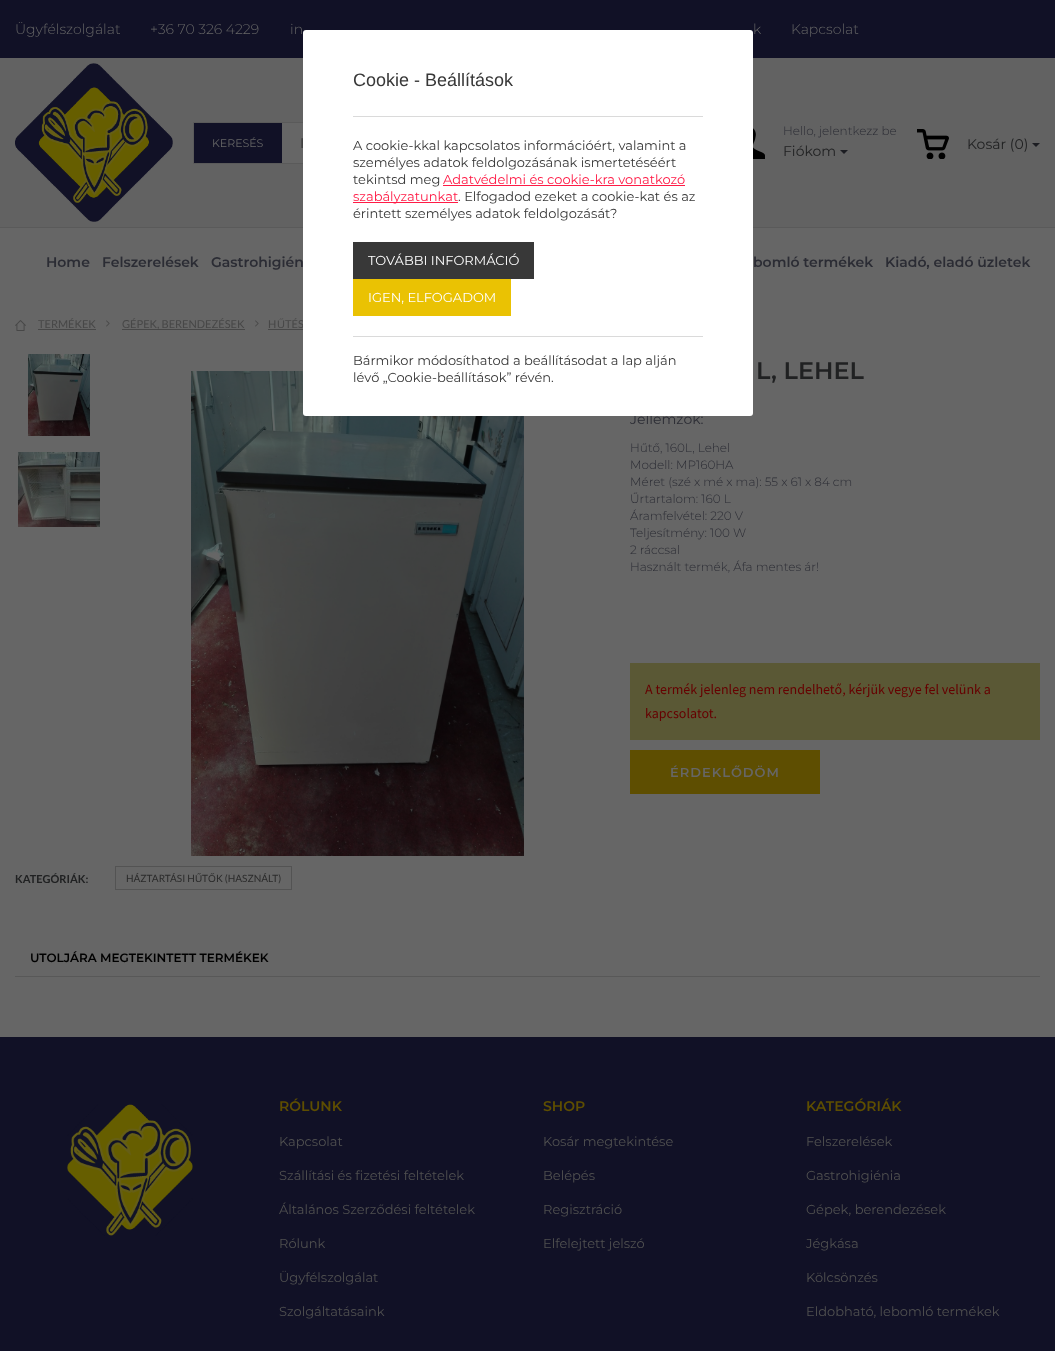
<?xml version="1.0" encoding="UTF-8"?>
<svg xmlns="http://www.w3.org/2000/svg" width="1055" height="1351">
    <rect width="100%" height="100%" fill="#666666"/>
    <rect x="0" y="0" width="1055" height="58" fill="#111126"/>
    <text x="15" y="34" font-family="Montserrat" font-size="14" font-weight="300" fill="#666666">Ügyfélszolgálat</text>
    <text x="150" y="34" font-family="Montserrat" font-size="14" font-weight="300" fill="#666666">+36 70 326 4229</text>
    <text x="290" y="34" font-family="Montserrat" font-size="14" font-weight="300" fill="#666666">in</text>
    <text x="753" y="34" font-family="Montserrat" font-size="14" font-weight="300" fill="#666666">k</text>
    <text x="791" y="34" font-family="Montserrat" font-size="14" font-weight="300" fill="#666666">Kapcsolat</text>
    <rect x="0" y="58" width="1055" height="169" fill="#626262"/>
    <rect x="0" y="227" width="1055" height="1" fill="#5A5A5A"/>
    <image x="15" y="63" width="158" height="159" href="img_01.png"/>
    <rect x="282" y="123" width="21" height="40" fill="#666666"/>
    <rect x="193.5" y="122.5" width="519" height="41" fill="none" stroke="#5A5A5A"/>
    <rect x="194" y="123" width="88" height="40" fill="#111126"/>
    <text x="212" y="147" font-family="Montserrat" font-size="11" font-weight="100" fill="#666666">KERESÉS</text>
    <text x="300" y="148" font-family="Montserrat" font-size="14" font-weight="100" fill="#2B2B2B">I</text>
    <image x="753" y="128" width="12" height="31" href="img_02.png"/>
    <text x="783" y="135" font-family="Montserrat" font-size="12" font-weight="300" fill="#2B2C34">Hello, jelentkezz be</text>
    <text x="783" y="156" font-family="Montserrat" font-size="14" font-weight="100" fill="#202122">Fiókom</text>
    <path d="M 840 150 H 848 L 844 154 Z" fill="#1C1D22"/>
    <image x="917" y="129" width="32" height="30" href="img_03.png"/>
    <text x="967" y="149" font-family="Montserrat" font-size="14" font-weight="100" fill="#202122">Kosár (0)</text>
    <path d="M 1032 143 H 1040 L 1036 147 Z" fill="#1C1D22"/>
    <text x="46" y="267" font-family="Montserrat" font-size="14" font-weight="600" fill="#2B2C34">Home</text>
    <text x="102" y="267" font-family="Montserrat" font-size="14" font-weight="600" fill="#2B2C34">Felszerelések</text>
    <text x="211" y="267" font-family="Montserrat" font-size="14" font-weight="600" fill="#2B2C34">Gastrohigién</text>
    <text x="753" y="267" font-family="Montserrat" font-size="14" font-weight="600" fill="#2B2C34">bomló termékek</text>
    <text x="885" y="267" font-family="Montserrat" font-size="14" font-weight="600" fill="#2B2C34">Kiadó, eladó üzletek</text>
    <image x="15" y="320" width="11" height="11" href="img_04.png"/>
    <text x="38" y="328" font-family="Lato" font-size="11" fill="#474747">TERMÉKEK</text>
    <rect x="38" y="329" width="58" height="1" fill="#474747"/>
    <image x="106" y="320" width="4" height="7" href="img_05.png"/>
    <rect x="122" y="329" width="123" height="1" fill="#474747"/>
    <text x="122" y="328" font-family="Lato" font-size="11" fill="#474747">GÉPEK, BERENDEZÉSEK</text>
    <image x="255" y="320" width="4" height="7" href="img_05.png"/>
    <text x="268" y="328" font-family="Lato" font-size="11" fill="#474747">H</text>
    <rect x="268" y="329" width="35" height="1" fill="#474747"/>
    <text x="277" y="328" font-family="Liberation Sans" font-size="11" fill="#474747">Ű</text>
    <text x="285" y="328" font-family="Lato" font-size="11" fill="#474747">TÉS</text>
    <text x="756" y="379" font-family="Montserrat" font-size="24" font-weight="600" fill="#202122">L, LEHEL</text>
    <text x="630" y="424" font-family="Montserrat" font-size="14" font-weight="100" fill="#2B2C34">Jellemzők:</text>
    <text font-family="Montserrat" font-size="12" font-weight="300" fill="#2B2C34">
        <tspan x="630" y="452">Hűtő, 160L, Lehel</tspan>
        <tspan x="630" y="469">Modell: MP160HA</tspan>
        <tspan x="630" y="486">Méret (szé x mé x ma): 55 x 61 x 84 cm</tspan>
        <tspan x="630" y="503">Űrtartalom: 160 L</tspan>
        <tspan x="630" y="520">Áramfelvétel: 220 V</tspan>
        <tspan x="630" y="537">Teljesítmény: 100 W</tspan>
        <tspan x="630" y="554">2 ráccsal</tspan>
        <tspan x="630" y="571">Használt termék, Áfa mentes ár!</tspan>
    </text>
    <rect x="630" y="663" width="410" height="77" fill="#5A5835"/>
    <text font-family="Source Sans Pro" font-size="14" fill="#660000">
        <tspan x="645" y="694">A termék jelenleg nem rendelhető, kérjük vegye fel velünk a</tspan>
        <tspan x="645" y="718">kapcsolatot.</tspan>
    </text>
    <rect x="630" y="750" width="190" height="44" fill="#5E4E01"/>
    <text x="670" y="777" font-family="Montserrat" font-size="13" font-weight="600" letter-spacing="1" fill="#666666">ÉRDEKLŐDÖM</text>
    <image x="28" y="354" width="62" height="82" href="img_06.png"/>
    <image x="18" y="452" width="82" height="75" href="img_07.png"/>
    <image x="191" y="371" width="333" height="485" href="img_08.png"/>
    <text x="15" y="883" font-family="Lato" font-size="11" font-weight="700" fill="#202122">KATEGÓRIÁK:</text>
    <rect x="115.5" y="866.5" width="176" height="23" fill="none" stroke="#535353"/>
    <text x="126" y="882" font-family="Lato" font-size="10" fill="#2B2B2B">HÁZTARTÁSI H</text>
    <text x="195" y="882" font-family="Liberation Sans" font-size="10" fill="#2B2B2B">Ű</text>
    <text x="202" y="882" font-family="Lato" font-size="10" fill="#2B2B2B">T</text>
    <text x="208" y="882" font-family="Liberation Sans" font-size="10" fill="#2B2B2B">Ő</text>
    <text x="216" y="882" font-family="Lato" font-size="10" fill="#2B2B2B">K (HASZNÁLT)</text>
    <text x="30" y="962" font-family="Montserrat" font-size="12" font-weight="600" fill="#000000">UTOLJÁRA MEGTEKINTETT TERMÉKEK</text>
    <rect x="15" y="976" width="1025" height="1" fill="#585858"/>
    <rect x="0" y="1037" width="1055" height="314" fill="#111126"/>
    <image x="67" y="1104" width="126" height="132" href="img_09.png"/>
    <text x="279" y="1111" font-family="Montserrat" font-size="14" font-weight="600" fill="#5E4E01">RÓLUNK</text>
    <text x="279" y="1146" font-family="Montserrat" font-size="13" font-weight="100" fill="#505050">Kapcsolat</text>
    <text x="279" y="1180" font-family="Montserrat" font-size="13" font-weight="100" fill="#505050">Szállítási és fizetési feltételek</text>
    <text x="279" y="1214" font-family="Montserrat" font-size="13" font-weight="100" fill="#505050">Általános Szerződési feltételek</text>
    <text x="279" y="1248" font-family="Montserrat" font-size="13" font-weight="100" fill="#505050">Rólunk</text>
    <text x="279" y="1282" font-family="Montserrat" font-size="13" font-weight="100" fill="#505050">Ügyfélszolgálat</text>
    <text x="279" y="1316" font-family="Montserrat" font-size="13" font-weight="100" fill="#505050">Szolgáltatásaink</text>
    <text x="543" y="1111" font-family="Montserrat" font-size="14" font-weight="600" fill="#5E4E01">SHOP</text>
    <text x="543" y="1146" font-family="Montserrat" font-size="13" font-weight="100" fill="#505050">Kosár megtekintése</text>
    <text x="543" y="1180" font-family="Montserrat" font-size="13" font-weight="100" fill="#505050">Belépés</text>
    <text x="543" y="1214" font-family="Montserrat" font-size="13" font-weight="100" fill="#505050">Regisztráció</text>
    <text x="543" y="1248" font-family="Montserrat" font-size="13" font-weight="100" fill="#505050">Elfelejtett jelszó</text>
    <text x="806" y="1111" font-family="Montserrat" font-size="14" font-weight="600" fill="#5E4E01">KATEGÓRIÁK</text>
    <text x="806" y="1146" font-family="Montserrat" font-size="13" font-weight="100" fill="#505050">Felszerelések</text>
    <text x="806" y="1180" font-family="Montserrat" font-size="13" font-weight="100" fill="#505050">Gastrohigiénia</text>
    <text x="806" y="1214" font-family="Montserrat" font-size="13" font-weight="100" fill="#505050">Gépek, berendezések</text>
    <text x="806" y="1248" font-family="Montserrat" font-size="13" font-weight="100" fill="#505050">Jégkása</text>
    <text x="806" y="1282" font-family="Montserrat" font-size="13" font-weight="100" fill="#505050">Kölcsönzés</text>
    <text x="806" y="1316" font-family="Montserrat" font-size="13" font-weight="100" fill="#505050">Eldobható, lebomló termékek</text>
    <rect x="303" y="30" width="450" height="386" rx="3" fill="#FFFFFF"/>
    <rect x="353" y="116" width="350" height="1" fill="#DADADA"/>
    <text x="353" y="86" font-family="Liberation Sans" font-size="18" fill="#383838">Cookie - Beállítások</text>
    <text font-family="Montserrat" font-size="13" font-weight="100" fill="#383838">
        <tspan x="353" y="150">A cookie-kkal kapcsolatos információért, valamint a</tspan>
        <tspan x="353" y="167">személyes adatok feldolgozásának ismertetéséért</tspan>
        <tspan x="353" y="184">tekintsd meg</tspan>
    </text>
    <text x="443" y="184" font-family="Montserrat" font-size="13" font-weight="100" fill="#FF1B46">Adatvédelmi és cookie-kra vonatkozó</text>
    <rect x="443" y="185" width="242" height="1" fill="#FF1B46"/>
    <rect x="353" y="202" width="105" height="1" fill="#FF1B46"/>
    <text x="353" y="201" font-family="Montserrat" font-size="13" font-weight="100" fill="#FF1B46">szabályzatunkat</text>
    <text x="458" y="201" font-family="Montserrat" font-size="13" font-weight="100" fill="#383838">. Elfogadod ezeket a cookie-kat és az</text>
    <text x="353" y="218" font-family="Montserrat" font-size="13" font-weight="100" fill="#383838">érintett személyes adatok feldolgozását?</text>
    <rect x="353" y="242" width="181" height="37" fill="#383838"/>
    <text x="368" y="265" font-family="Montserrat" font-size="13" font-weight="100" fill="#FFFFFF">TOVÁBBI INFORMÁCIÓ</text>
    <rect x="353" y="279" width="158" height="37" fill="#EAC203"/>
    <text x="368" y="302" font-family="Montserrat" font-size="13" font-weight="100" fill="#FFFFFF">IGEN, ELFOGADOM</text>
    <rect x="353" y="336" width="350" height="1" fill="#DADADA"/>
    <text font-family="Montserrat" font-size="13" font-weight="100" fill="#383838">
        <tspan x="353" y="365">Bármikor módosíthatod a beállításodat a lap alján</tspan>
        <tspan x="353" y="382">lévő „Cookie-beállítások” révén.</tspan>
    </text>
</svg>
